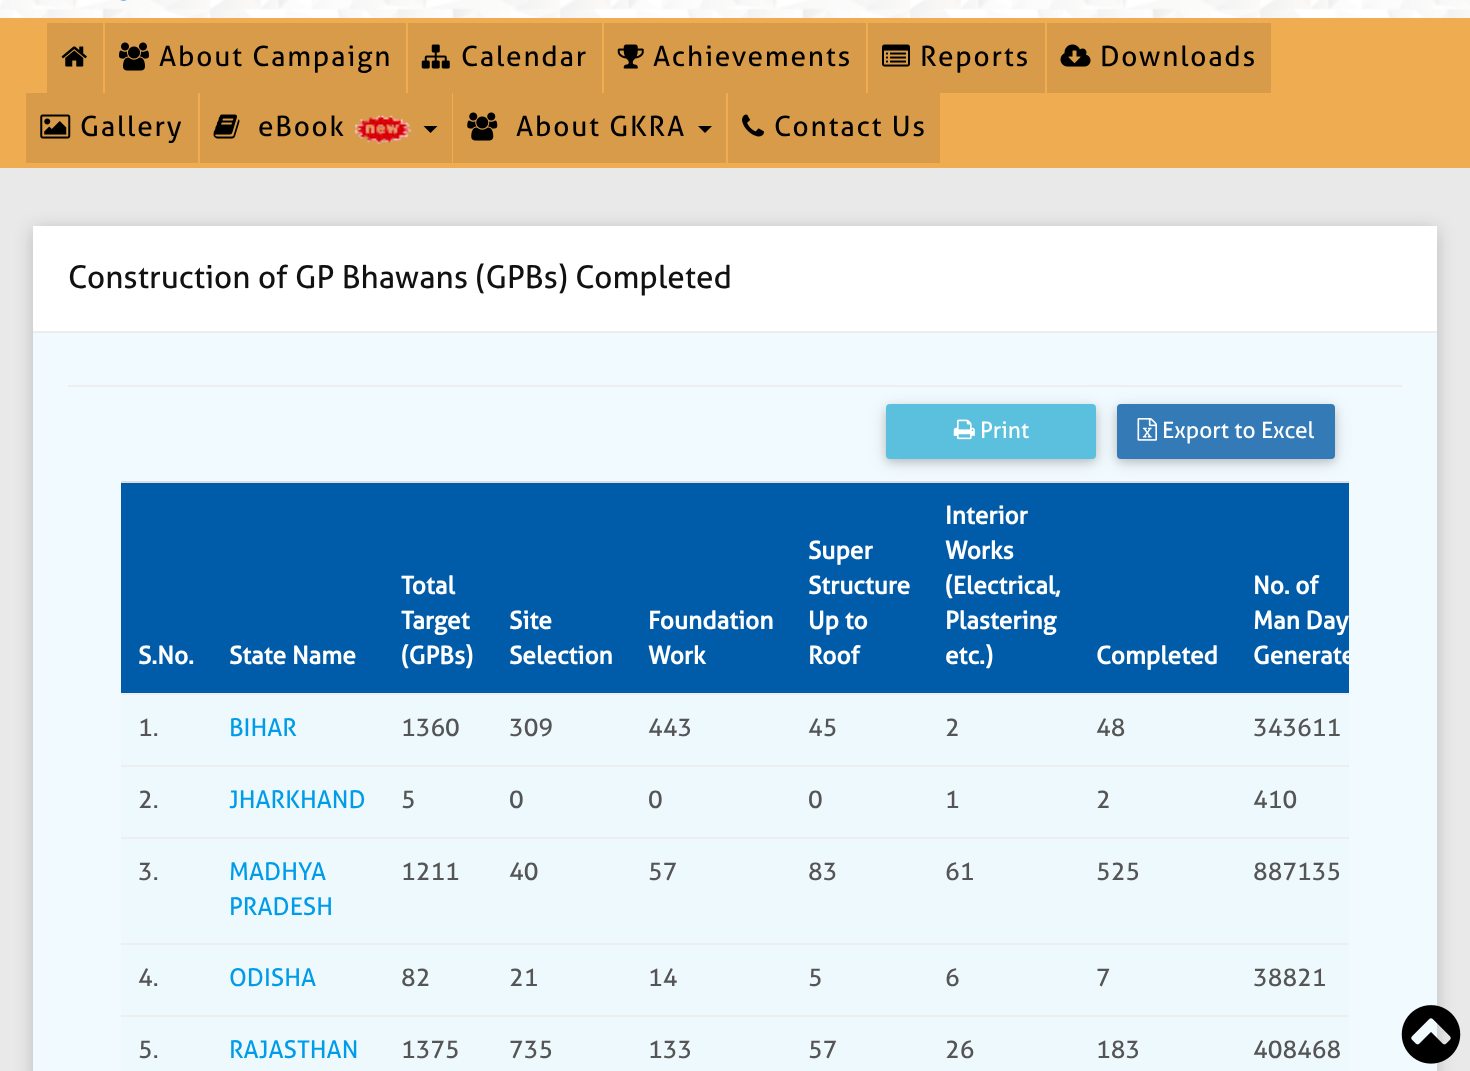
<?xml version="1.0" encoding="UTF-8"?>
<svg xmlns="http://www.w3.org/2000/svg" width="1470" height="1071">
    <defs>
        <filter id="blur1" x="-50%" y="-200%" width="200%" height="500%"><feGaussianBlur stdDeviation="9"/></filter>
        <filter id="blur2" x="-50%" y="-200%" width="200%" height="500%"><feGaussianBlur stdDeviation="4.5"/></filter>
        <clipPath id="clip1"><rect x="121" y="481" width="1228" height="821"/></clipPath>
    </defs>
    <rect width="100%" height="100%" fill="#FFFFFF"/>
    <image x="0" y="0" width="1470" height="18" href="img_01.png"/>
    <image x="120" y="0" width="7" height="1" href="img_02.png"/>
    <rect x="0" y="18" width="1470" height="150" fill="#EFAC51"/>
    <rect x="47" y="23" width="56" height="70" fill="#D79B49"/>
    <image x="61" y="46" width="26" height="21" href="img_03.png"/>
    <rect x="105" y="23" width="301" height="70" fill="#D79B49"/>
    <image x="119" y="42" width="30" height="29" href="img_04.png"/>
    <text x="159" y="66" font-family="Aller" font-size="28" letter-spacing="1.75" fill="#000000">About Campaign</text>
    <rect x="408" y="23" width="194" height="70" fill="#D79B49"/>
    <image x="421" y="44" width="29" height="25" href="img_05.png"/>
    <text x="461" y="66" font-family="Aller" font-size="28" letter-spacing="1.75" fill="#000000">Calendar</text>
    <rect x="604" y="23" width="262" height="70" fill="#D79B49"/>
    <image x="617" y="44" width="27" height="25" href="img_06.png"/>
    <text x="653" y="66" font-family="Aller" font-size="28" letter-spacing="1.75" fill="#000000">Achievements</text>
    <rect x="868" y="23" width="177" height="70" fill="#D79B49"/>
    <image x="882" y="44" width="28" height="23" href="img_07.png"/>
    <text x="920" y="66" font-family="Aller" font-size="28" letter-spacing="1.75" fill="#000000">Reports</text>
    <rect x="1047" y="23" width="224" height="70" fill="#D79B49"/>
    <image x="1060" y="44" width="31" height="23" href="img_08.png"/>
    <text x="1100" y="66" font-family="Aller" font-size="28" letter-spacing="1.75" fill="#000000">Downloads</text>
    <rect x="26" y="93" width="172" height="70" fill="#D79B49"/>
    <image x="40" y="114" width="31" height="25" href="img_09.png"/>
    <text x="80" y="136" font-family="Aller" font-size="28" letter-spacing="1.75" fill="#000000">Gallery</text>
    <rect x="200" y="93" width="252" height="70" fill="#D79B49"/>
    <image x="213" y="114" width="27" height="25" href="img_10.png"/>
    <text x="258" y="136" font-family="Aller" font-size="28" letter-spacing="1.75" fill="#000000">eBook</text>
    <image x="354" y="115" width="58" height="29" href="img_11.png"/>
    <path d="M 423.5 126 H 437.5 L 430.5 133 Z" fill="#000000"/>
    <rect x="453" y="93" width="273" height="70" fill="#D79B49"/>
    <image x="467" y="112" width="31" height="29" href="img_12.png"/>
    <text x="516" y="136" font-family="Aller" font-size="28" letter-spacing="1.75" fill="#000000">About GKRA</text>
    <path d="M 698 126 H 712 L 705 133 Z" fill="#000000"/>
    <rect x="728" y="93" width="212" height="70" fill="#D79B49"/>
    <image x="742" y="114" width="22" height="23" href="img_13.png"/>
    <text x="774" y="136" font-family="Aller" font-size="28" letter-spacing="1.75" fill="#000000">Contact Us</text>
    <rect x="0" y="168" width="1470" height="903" fill="#E9E9E9"/>
    <rect x="33" y="229" width="1404" height="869" fill="#000000" fill-opacity="0.2" filter="url(#blur1)"/>
    <rect x="33" y="226" width="1404" height="105" fill="#FFFFFF"/>
    <rect x="33" y="331" width="1404" height="2" fill="#EDEDED"/>
    <text x="68" y="288" font-family="Aller" font-size="31.5" fill="#111111">Construction of GP Bhawans (GPBs) Completed</text>
    <rect x="33" y="333" width="1404" height="738" fill="#F1FAFE"/>
    <rect x="68" y="385" width="1334" height="2" fill="#EEEEEE"/>
    <rect x="886" y="408" width="210" height="54" rx="4" fill="#000000" fill-opacity="0.12" filter="url(#blur1)"/>
    <rect x="886" y="408" width="210" height="54" rx="4" fill="#000000" fill-opacity="0.16" filter="url(#blur2)"/>
    <rect x="886" y="404" width="210" height="55" rx="4" fill="#5BC0DE"/>
    <image x="953" y="419" width="22" height="21" href="img_14.png"/>
    <text x="980" y="438" font-family="Aller" font-size="22.75" fill="#FFFFFF">Print</text>
    <rect x="1117" y="408" width="218" height="54" rx="4" fill="#000000" fill-opacity="0.12" filter="url(#blur1)"/>
    <rect x="1117" y="408" width="218" height="54" rx="4" fill="#000000" fill-opacity="0.16" filter="url(#blur2)"/>
    <rect x="1117" y="404" width="218" height="55" rx="4" fill="#337AB7"/>
    <image x="1137" y="418" width="20" height="23" href="img_15.png"/>
    <text x="1162" y="438" font-family="Aller" font-size="22.75" fill="#FFFFFF">Export to Excel</text>
    <rect x="121" y="695" width="1228" height="376" fill="#EEF9FE"/>
    <rect x="121" y="483" width="1228" height="210" fill="#005BA9"/>
    <text x="138" y="664" font-family="Aller" font-size="24.5" font-weight="700" fill="#FFFFFF">S.No.</text>
    <text x="229" y="664" font-family="Aller" font-size="24.5" font-weight="700" fill="#FFFFFF">State Name</text>
    <text font-family="Aller" font-size="24.5" font-weight="700" fill="#FFFFFF">
        <tspan x="401" y="594">Total</tspan>
        <tspan x="401" y="629">Target</tspan>
        <tspan x="401" y="664">(GPBs)</tspan>
    </text>
    <text font-family="Aller" font-size="24.5" font-weight="700" fill="#FFFFFF">
        <tspan x="509" y="629">Site</tspan>
        <tspan x="509" y="664">Selection</tspan>
    </text>
    <text font-family="Aller" font-size="24.5" font-weight="700" fill="#FFFFFF">
        <tspan x="648" y="629">Foundation</tspan>
        <tspan x="648" y="664">Work</tspan>
    </text>
    <text font-family="Aller" font-size="24.5" font-weight="700" fill="#FFFFFF">
        <tspan x="808" y="559">Super</tspan>
        <tspan x="808" y="594">Structure</tspan>
        <tspan x="808" y="629">Up to</tspan>
        <tspan x="808" y="664">Roof</tspan>
    </text>
    <text font-family="Aller" font-size="24.5" font-weight="700" fill="#FFFFFF">
        <tspan x="945" y="524">Interior</tspan>
        <tspan x="945" y="559">Works</tspan>
        <tspan x="945" y="594">(Electrical,</tspan>
        <tspan x="945" y="629">Plastering</tspan>
        <tspan x="945" y="664">etc.)</tspan>
    </text>
    <text x="1096" y="664" font-family="Aller" font-size="24.5" font-weight="700" fill="#FFFFFF">Completed</text>
    <rect x="121" y="481" width="1228" height="2" fill="#DDDDDD"/>
    <text font-family="Aller" font-size="24.5" font-weight="700" fill="#FFFFFF">
        <tspan x="1253" y="594">No. of</tspan>
        <tspan x="1253" y="629">Man Day</tspan>
    </text>
    <g clip-path="url(#clip1)">
        <text x="1253" y="664" font-family="Aller" font-size="24.5" font-weight="700" fill="#FFFFFF">Generate</text>
    </g>
    <text x="138" y="736" font-family="Aller" font-size="24.5" fill="#555555">1.</text>
    <text x="229" y="736" font-family="Aller" font-size="24.5" fill="#009CE8">BIHAR</text>
    <text x="401" y="736" font-family="Aller" font-size="24.5" fill="#555555">1360</text>
    <text x="509" y="736" font-family="Aller" font-size="24.5" fill="#555555">309</text>
    <text x="648" y="736" font-family="Aller" font-size="24.5" fill="#555555">443</text>
    <text x="808" y="736" font-family="Aller" font-size="24.5" fill="#555555">45</text>
    <text x="945" y="736" font-family="Aller" font-size="24.5" fill="#555555">2</text>
    <text x="1096" y="736" font-family="Aller" font-size="24.5" fill="#555555">48</text>
    <rect x="121" y="693" width="1228" height="2" fill="#EEEEEE"/>
    <text x="1253" y="736" font-family="Aller" font-size="24.5" fill="#555555">343611</text>
    <text x="138" y="808" font-family="Aller" font-size="24.5" fill="#555555">2.</text>
    <text x="229" y="808" font-family="Aller" font-size="24.5" fill="#009CE8">JHARKHAND</text>
    <text x="401" y="808" font-family="Aller" font-size="24.5" fill="#555555">5</text>
    <text x="509" y="808" font-family="Aller" font-size="24.5" fill="#555555">0</text>
    <text x="648" y="808" font-family="Aller" font-size="24.5" fill="#555555">0</text>
    <text x="808" y="808" font-family="Aller" font-size="24.5" fill="#555555">0</text>
    <text x="945" y="808" font-family="Aller" font-size="24.5" fill="#555555">1</text>
    <text x="1096" y="808" font-family="Aller" font-size="24.5" fill="#555555">2</text>
    <rect x="121" y="765" width="1228" height="2" fill="#EEEEEE"/>
    <text x="1253" y="808" font-family="Aller" font-size="24.5" fill="#555555">410</text>
    <text x="138" y="880" font-family="Aller" font-size="24.5" fill="#555555">3.</text>
    <text font-family="Aller" font-size="24.5" fill="#009CE8">
        <tspan x="229" y="880">MADHYA</tspan>
        <tspan x="229" y="915">PRADESH</tspan>
    </text>
    <text x="401" y="880" font-family="Aller" font-size="24.5" fill="#555555">1211</text>
    <text x="509" y="880" font-family="Aller" font-size="24.5" fill="#555555">40</text>
    <text x="648" y="880" font-family="Aller" font-size="24.5" fill="#555555">57</text>
    <text x="808" y="880" font-family="Aller" font-size="24.5" fill="#555555">83</text>
    <text x="945" y="880" font-family="Aller" font-size="24.5" fill="#555555">61</text>
    <text x="1096" y="880" font-family="Aller" font-size="24.5" fill="#555555">525</text>
    <rect x="121" y="837" width="1228" height="2" fill="#EEEEEE"/>
    <text x="1253" y="880" font-family="Aller" font-size="24.5" fill="#555555">887135</text>
    <text x="138" y="986" font-family="Aller" font-size="24.5" fill="#555555">4.</text>
    <text x="229" y="986" font-family="Aller" font-size="24.5" fill="#009CE8">ODISHA</text>
    <text x="401" y="986" font-family="Aller" font-size="24.5" fill="#555555">82</text>
    <text x="509" y="986" font-family="Aller" font-size="24.5" fill="#555555">21</text>
    <text x="648" y="986" font-family="Aller" font-size="24.5" fill="#555555">14</text>
    <text x="808" y="986" font-family="Aller" font-size="24.5" fill="#555555">5</text>
    <text x="945" y="986" font-family="Aller" font-size="24.5" fill="#555555">6</text>
    <text x="1096" y="986" font-family="Aller" font-size="24.5" fill="#555555">7</text>
    <rect x="121" y="943" width="1228" height="2" fill="#EEEEEE"/>
    <text x="1253" y="986" font-family="Aller" font-size="24.5" fill="#555555">38821</text>
    <text x="138" y="1058" font-family="Aller" font-size="24.5" fill="#555555">5.</text>
    <text x="229" y="1058" font-family="Aller" font-size="24.5" fill="#009CE8">RAJASTHAN</text>
    <text x="401" y="1058" font-family="Aller" font-size="24.5" fill="#555555">1375</text>
    <text x="509" y="1058" font-family="Aller" font-size="24.5" fill="#555555">735</text>
    <text x="648" y="1058" font-family="Aller" font-size="24.5" fill="#555555">133</text>
    <text x="808" y="1058" font-family="Aller" font-size="24.5" fill="#555555">57</text>
    <text x="945" y="1058" font-family="Aller" font-size="24.5" fill="#555555">26</text>
    <text x="1096" y="1058" font-family="Aller" font-size="24.5" fill="#555555">183</text>
    <rect x="121" y="1015" width="1228" height="2" fill="#EEEEEE"/>
    <text x="1253" y="1058" font-family="Aller" font-size="24.5" fill="#555555">408468</text>
    <image x="1401" y="1005" width="60" height="59" href="img_16.png"/>
</svg>
